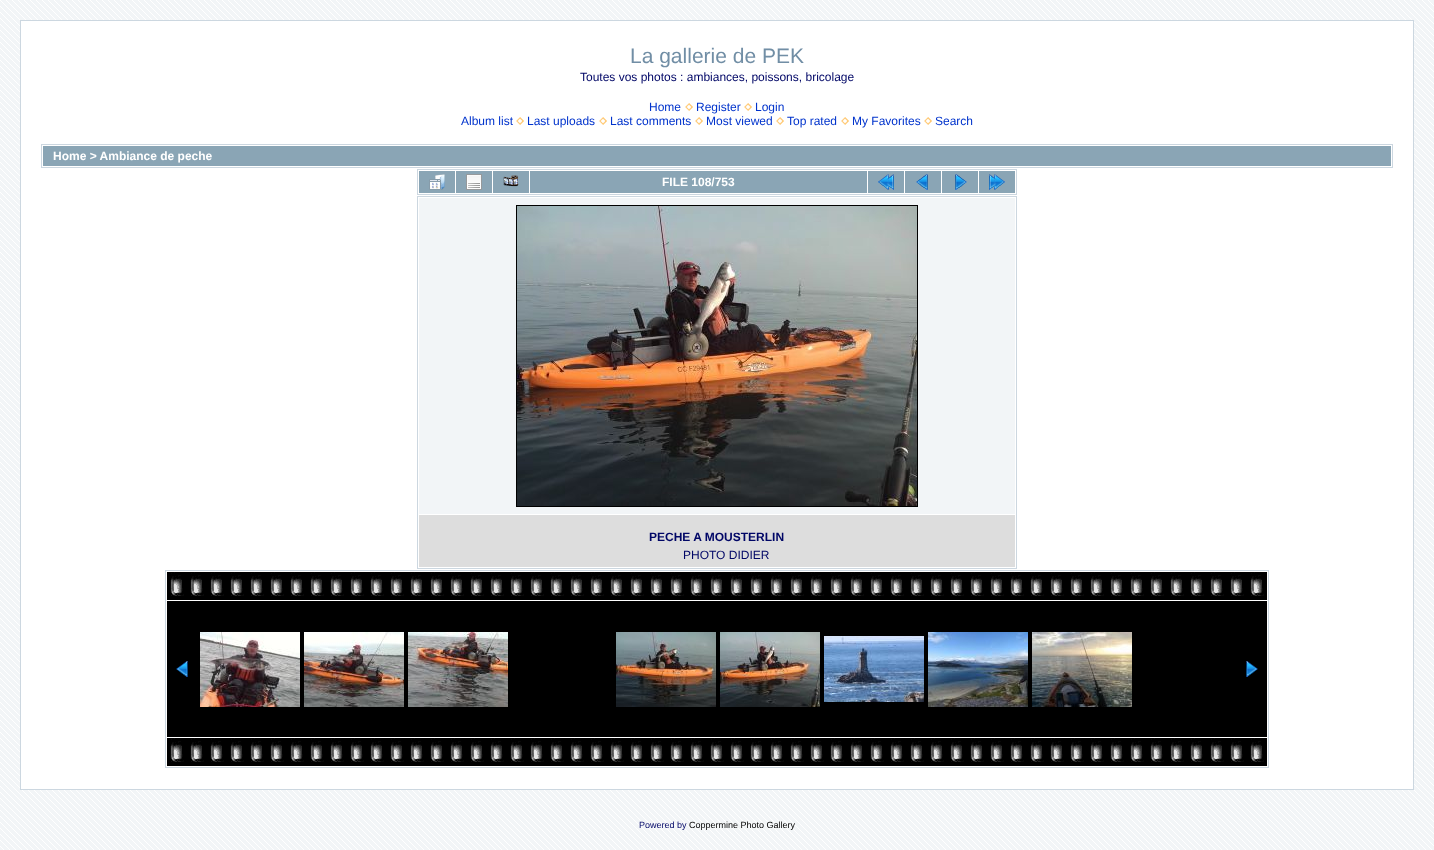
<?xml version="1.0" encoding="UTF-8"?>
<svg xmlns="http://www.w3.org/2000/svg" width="1434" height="850">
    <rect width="100%" height="100%" fill="#F2F5F7"/>
    <image x="0" y="0" width="1434" height="850" href="img_01.png"/>
    <rect x="20.5" y="20.5" width="1393" height="769" fill="#FFFFFF" stroke="#CCD7E0"/>
    <text x="630" y="63" font-family="Liberation Sans" font-size="21" fill="#718EA5">La gallerie de PEK</text>
    <text x="580" y="81" font-family="Liberation Sans" font-size="12" fill="#000666">Toutes vos photos : ambiances, poissons, bricolage</text>
    <text x="649" y="111" font-family="Liberation Sans" font-size="12" fill="#0033CC">Home</text>
    <image x="685" y="103" width="8" height="8" href="img_02.png"/>
    <text x="696" y="111" font-family="Liberation Sans" font-size="12" fill="#0033CC">Register</text>
    <image x="744" y="103" width="8" height="8" href="img_02.png"/>
    <text x="755" y="111" font-family="Liberation Sans" font-size="12" fill="#0033CC">Login</text>
    <text x="461" y="125" font-family="Liberation Sans" font-size="12" fill="#0033CC">Album list</text>
    <image x="516" y="117" width="8" height="8" href="img_02.png"/>
    <text x="527" y="125" font-family="Liberation Sans" font-size="12" fill="#0033CC">Last uploads</text>
    <image x="599" y="117" width="8" height="8" href="img_02.png"/>
    <text x="610" y="125" font-family="Liberation Sans" font-size="12" fill="#0033CC">Last comments</text>
    <image x="695" y="117" width="8" height="8" href="img_02.png"/>
    <text x="706" y="125" font-family="Liberation Sans" font-size="12" fill="#0033CC">Most viewed</text>
    <image x="776" y="117" width="8" height="8" href="img_02.png"/>
    <text x="787" y="125" font-family="Liberation Sans" font-size="12" fill="#0033CC">Top rated</text>
    <image x="841" y="117" width="8" height="8" href="img_02.png"/>
    <text x="852" y="125" font-family="Liberation Sans" font-size="12" fill="#0033CC">My Favorites</text>
    <image x="924" y="117" width="8" height="8" href="img_02.png"/>
    <text x="935" y="125" font-family="Liberation Sans" font-size="12" fill="#0033CC">Search</text>
    <rect x="41.5" y="144.5" width="1351" height="23" fill="none" stroke="#CCD7E0"/>
    <rect x="43" y="146" width="1348" height="20" fill="#8AA5B5"/>
    <text x="53" y="160" font-family="Liberation Sans" font-size="12" font-weight="700" fill="#FFFFFF">Home &gt; Ambiance de peche</text>
    <rect x="417.5" y="169.5" width="599" height="25" fill="none" stroke="#CCD7E0"/>
    <rect x="419" y="171" width="36" height="22" fill="#8AA5B5"/>
    <image x="429" y="174" width="16" height="16" href="img_03.png"/>
    <rect x="456" y="171" width="36" height="22" fill="#8AA5B5"/>
    <image x="466" y="174" width="16" height="16" href="img_04.png"/>
    <rect x="493" y="171" width="36" height="22" fill="#8AA5B5"/>
    <image x="503" y="175" width="16" height="12" href="img_05.png"/>
    <rect x="530" y="171" width="337" height="22" fill="#8AA5B5"/>
    <text x="662" y="186" font-family="Liberation Sans" font-size="12" font-weight="700" fill="#FFFFFF">FILE 108/753</text>
    <rect x="868" y="171" width="36" height="22" fill="#8AA5B5"/>
    <image x="878" y="174" width="16" height="16" href="img_06.png"/>
    <rect x="905" y="171" width="36" height="22" fill="#8AA5B5"/>
    <image x="916" y="174" width="12" height="16" href="img_07.png"/>
    <rect x="942" y="171" width="36" height="22" fill="#8AA5B5"/>
    <image x="955" y="174" width="12" height="16" href="img_08.png"/>
    <rect x="979" y="171" width="36" height="22" fill="#8AA5B5"/>
    <image x="989" y="174" width="16" height="16" href="img_09.png"/>
    <rect x="417.5" y="196.5" width="599" height="372" fill="none" stroke="#CCD7E0"/>
    <rect x="419" y="198" width="596" height="316" fill="#F2F5F7"/>
    <rect x="516.5" y="205.5" width="401" height="301" fill="none" stroke="#000000"/>
    <image x="517" y="206" width="400" height="300" href="img_10.png"/>
    <rect x="419" y="515" width="596" height="52" fill="#DDDDDD"/>
    <text x="649" y="541" font-family="Liberation Sans" font-size="12" font-weight="700" fill="#000666">PECHE A MOUSTERLIN</text>
    <text x="683" y="559" font-family="Liberation Sans" font-size="12" fill="#000666">PHOTO DIDIER</text>
    <rect x="165.5" y="570.5" width="1103" height="197" fill="none" stroke="#CCD7E0"/>
    <rect x="167" y="572" width="1100" height="28" fill="#000000"/>
    <image x="170" y="572" width="1094" height="24" href="img_11.png"/>
    <rect x="167" y="601" width="1100" height="136" fill="#000000"/>
    <image x="176" y="661" width="12" height="16" href="img_12.png"/>
    <image x="200" y="632" width="100" height="75" href="img_13.png"/>
    <image x="304" y="632" width="100" height="75" href="img_14.png"/>
    <image x="408" y="632" width="100" height="75" href="img_15.png"/>
    <image x="616" y="632" width="100" height="75" href="img_16.png"/>
    <image x="720" y="632" width="100" height="75" href="img_17.png"/>
    <image x="824" y="636" width="100" height="66" href="img_18.png"/>
    <image x="928" y="632" width="100" height="75" href="img_19.png"/>
    <image x="1032" y="632" width="100" height="75" href="img_20.png"/>
    <image x="1246" y="661" width="12" height="16" href="img_21.png"/>
    <rect x="167" y="738" width="1100" height="28" fill="#000000"/>
    <image x="170" y="738" width="1094" height="24" href="img_11.png"/>
    <text x="639" y="828" font-family="Liberation Sans" font-size="9" fill="#000666">Powered by</text>
    <text x="689" y="828" font-family="Liberation Sans" font-size="9" fill="#000000">Coppermine Photo Gallery</text>
</svg>
